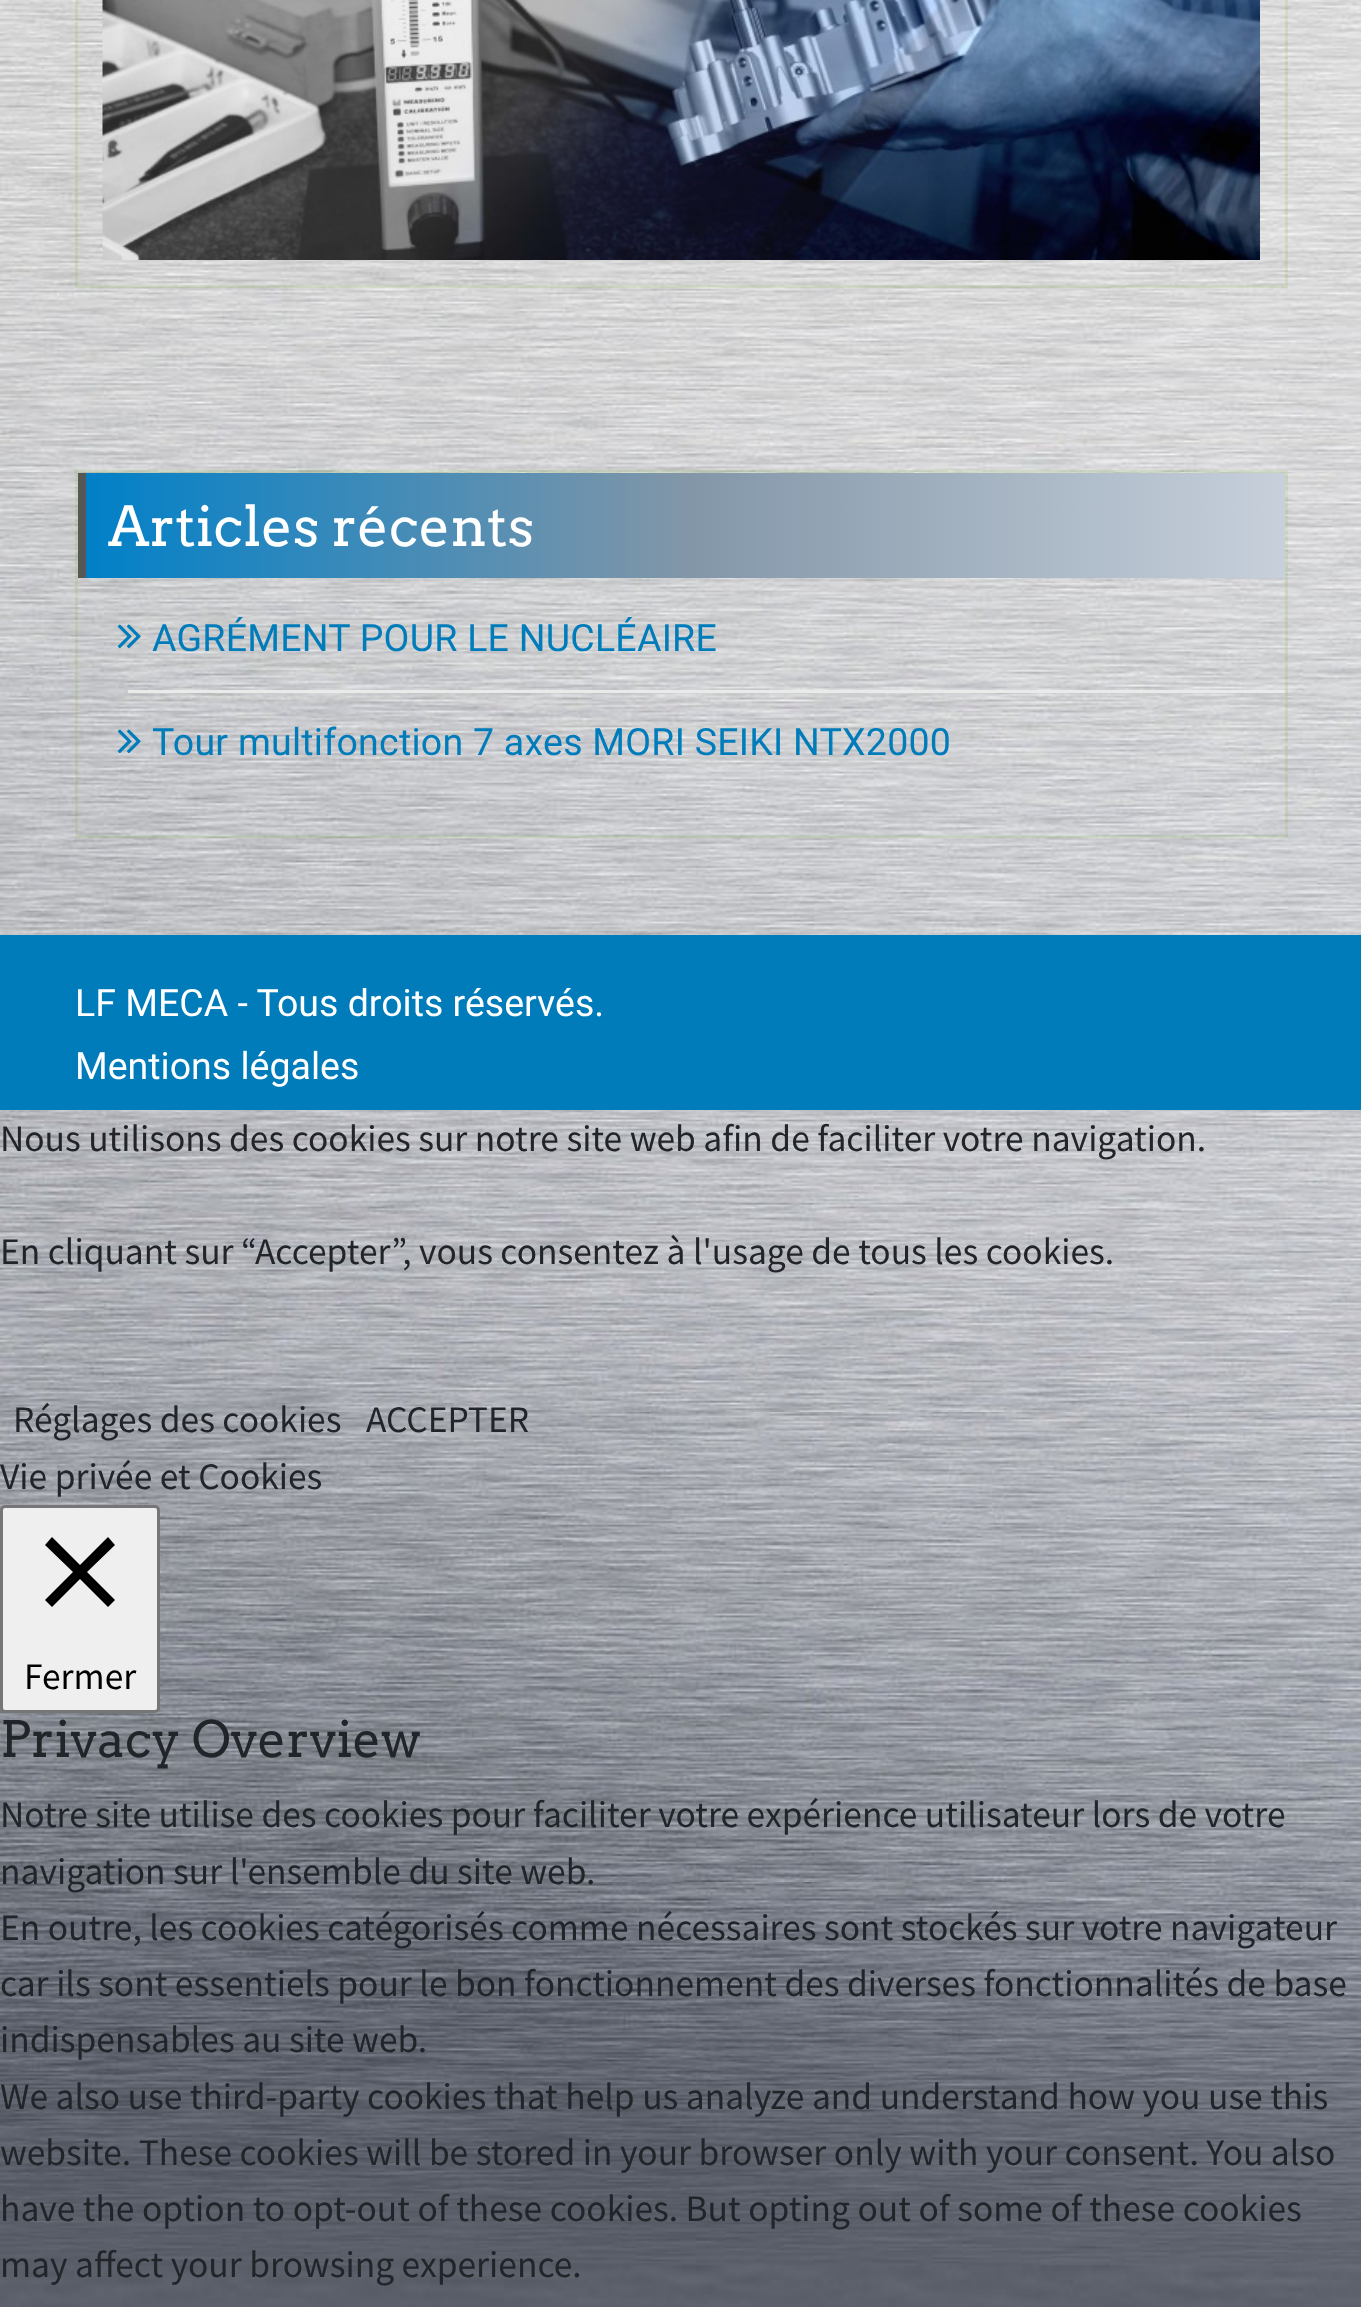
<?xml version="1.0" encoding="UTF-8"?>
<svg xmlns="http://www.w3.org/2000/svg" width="1361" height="2307">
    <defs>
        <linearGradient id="g1" gradientUnits="userSpaceOnUse" x1="85" y1="525" x2="1285" y2="525"><stop offset="0" stop-color="#0080C8"/><stop offset="0.5" stop-color="#8296A8"/><stop offset="1" stop-color="#C7D0DB"/></linearGradient>
    </defs>
    <rect width="100%" height="100%" fill="#FFFFFF"/>
    <image x="0" y="0" width="1361" height="2307" href="img_01.png"/>
    <rect x="76.5" y="-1.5" width="1210" height="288" fill="none" stroke="#68AC10" stroke-opacity="0.12" stroke-width="3"/>
    <image x="102" y="0" width="1158" height="260" href="img_02.png"/>
    <rect x="76.5" y="471.5" width="1210" height="365" fill="none" stroke="#68AC10" stroke-opacity="0.12" stroke-width="3"/>
    <rect x="86" y="473" width="1199" height="105" fill="url(#g1)"/>
    <rect x="78" y="473" width="8" height="105" fill="#575756"/>
    <text x="108" y="546" font-family="Arvo" font-size="55" fill="#FFFFFF">Articles récents</text>
    <rect x="128" y="690" width="1157" height="3" fill="#EAEAEA"/>
    <image x="117" y="624" width="24" height="25" href="img_03.png"/>
    <text x="152" y="651" font-family="Roboto" font-size="37.5" letter-spacing="0.25" fill="#007CBA">AGRÉMENT POUR LE NUCLÉAIRE</text>
    <image x="117" y="729" width="24" height="25" href="img_04.png"/>
    <text x="152" y="755" font-family="Roboto" font-size="37.5" letter-spacing="0.25" fill="#007CBA">Tour multifonction 7 axes MORI SEIKI NTX2000</text>
    <rect x="0" y="935" width="1361" height="175" fill="#007CBA"/>
    <text font-family="Roboto" font-size="37.5" fill="#FFFFFF">
        <tspan x="75" y="1016">LF MECA - Tous droits réservés.</tspan>
        <tspan x="75" y="1079">Mentions légales</tspan>
    </text>
    <text x="0" y="1151" font-family="Source Sans Pro" font-size="37.5" fill="#212529">Nous utilisons des cookies sur notre site web afin de faciliter votre navigation.</text>
    <text x="0" y="1264" font-family="Source Sans Pro" font-size="37.5" fill="#212529">En cliquant sur “Accepter”, vous consentez à l'usage de tous les cookies.</text>
    <text x="13" y="1432" font-family="Source Sans Pro" font-size="37.5" fill="#212529">Réglages des cookies</text>
    <text x="366" y="1432" font-family="Source Sans Pro" font-size="37.5" fill="#212529">ACCEPTER</text>
    <text x="0" y="1489" font-family="Source Sans Pro" font-size="37.5" fill="#212529">Vie privée et Cookies</text>
    <rect x="1.5" y="1506.5" width="157" height="205" rx="3.5" fill="#EFEFEF" stroke="#767676" stroke-width="3"/>
    <path d="M 115 1545 L 108 1537 L 80 1565 L 52 1537 L 45 1545 L 73 1572 L 45 1600 L 52 1607 L 80 1579 L 108 1607 L 115 1600 L 87 1572 Z" fill="#000000"/>
    <text x="24" y="1689" font-family="Source Sans Pro" font-size="37.5" fill="#000000">Fermer</text>
    <text x="0" y="1757" font-family="Arvo" font-size="50" fill="#212529">Privacy Overview</text>
    <text font-family="Source Sans Pro" font-size="37.5" fill="#212529">
        <tspan x="0" y="1827">Notre site utilise des cookies pour faciliter votre expérience utilisateur lors de votre</tspan>
        <tspan x="0" y="1884">navigation sur l'ensemble du site web.</tspan>
        <tspan x="0" y="1940">En outre, les cookies catégorisés comme nécessaires sont stockés sur votre navigateur</tspan>
        <tspan x="0" y="1996">car ils sont essentiels pour le bon fonctionnement des diverses fonctionnalités de base</tspan>
        <tspan x="0" y="2052">indispensables au site web.</tspan>
        <tspan x="0" y="2109">We also use third-party cookies that help us analyze and understand how you use this</tspan>
        <tspan x="0" y="2165">website. These cookies will be stored in your browser only with your consent. You also</tspan>
        <tspan x="0" y="2221">have the option to opt-out of these cookies. But opting out of some of these cookies</tspan>
        <tspan x="0" y="2277">may affect your browsing experience.</tspan>
    </text>
</svg>
